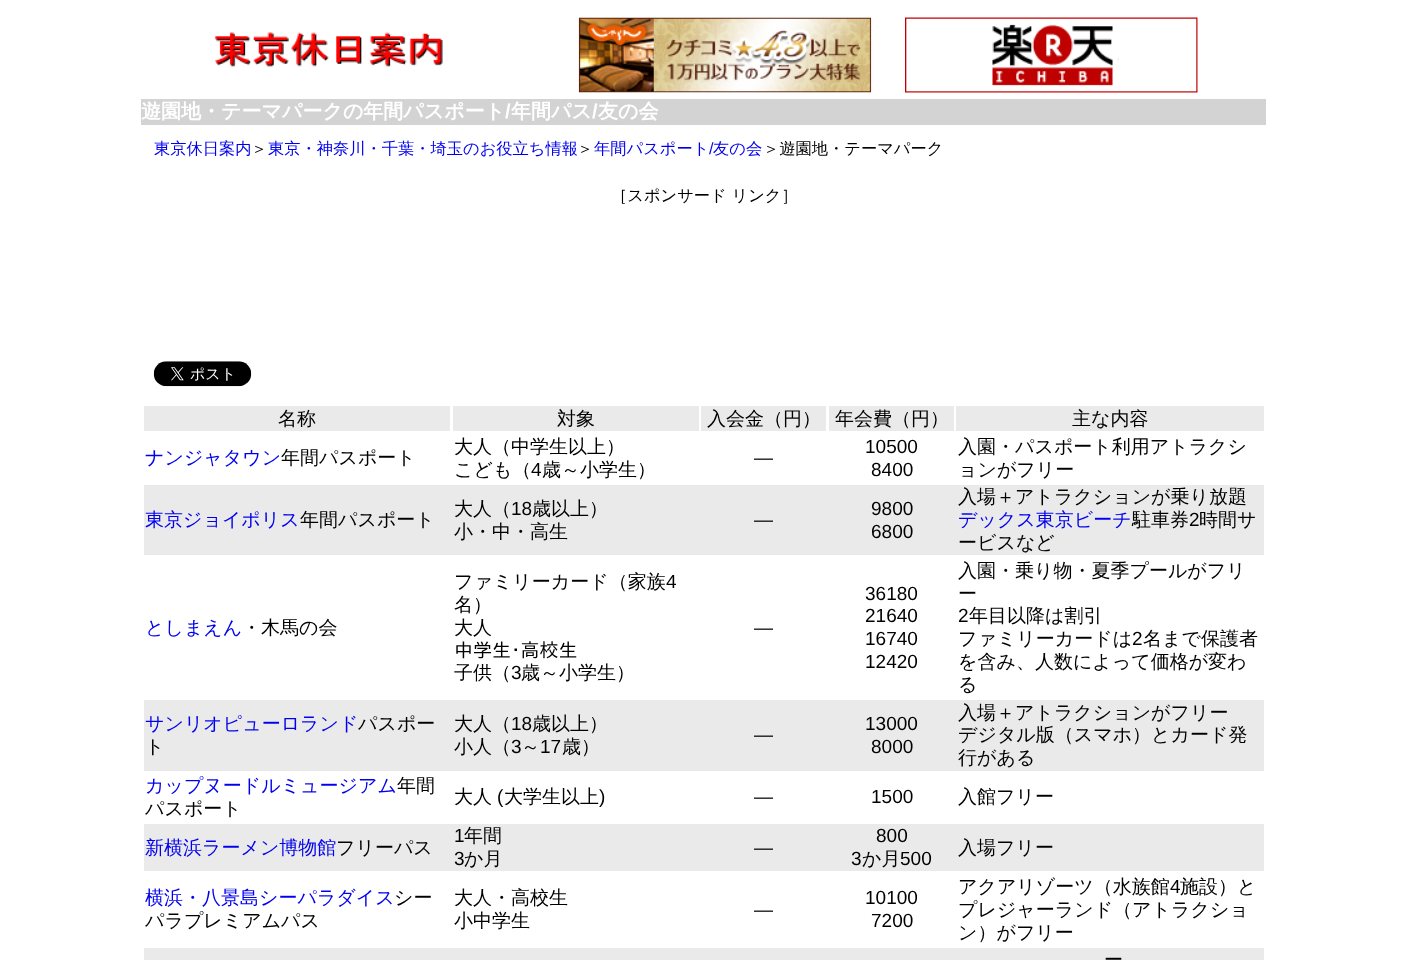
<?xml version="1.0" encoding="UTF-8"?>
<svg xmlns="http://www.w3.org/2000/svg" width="1407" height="960">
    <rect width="100%" height="100%" fill="#FFFFFF"/>
    <image x="214" y="32" width="229" height="35" href="img_01.png"/>
    <image x="578" y="17" width="294" height="76" href="img_02.png"/>
    <image x="905" y="17" width="293" height="76" href="img_03.png"/>
    <rect x="141" y="99" width="1125" height="26" fill="#D3D3D3"/>
    <text x="141" y="118" font-family="WenQuanYi Zen Hei" font-size="20" font-weight="700" fill="#FFFFFF">遊園地・テーマパークの年間パスポート</text>
    <text x="505" y="118" font-family="Liberation Sans" font-size="20" font-weight="700" fill="#FFFFFF">/</text>
    <text x="511" y="118" font-family="WenQuanYi Zen Hei" font-size="20" font-weight="700" fill="#FFFFFF">年間パス</text>
    <text x="592" y="118" font-family="Liberation Sans" font-size="20" font-weight="700" fill="#FFFFFF">/</text>
    <text x="598" y="118" font-family="WenQuanYi Zen Hei" font-size="20" font-weight="700" fill="#FFFFFF">友の会</text>
    <text x="154" y="154" font-family="WenQuanYi Zen Hei" font-size="16.25" font-weight="500" fill="#0000EE">東京休日案内</text>
    <text x="251" y="154" font-family="WenQuanYi Zen Hei" font-size="16.25" font-weight="500" fill="#000000">＞</text>
    <text x="268" y="154" font-family="WenQuanYi Zen Hei" font-size="16.25" font-weight="500" fill="#0000EE">東京・神奈川・千葉・埼玉のお役立ち情報</text>
    <text x="577" y="154" font-family="WenQuanYi Zen Hei" font-size="16.25" font-weight="500" fill="#000000">＞</text>
    <text x="594" y="154" font-family="WenQuanYi Zen Hei" font-size="16.25" font-weight="500" fill="#0000EE">年間パスポート</text>
    <text x="709" y="154" font-family="Liberation Sans" font-size="16.25" fill="#0000EE">/</text>
    <text x="713" y="154" font-family="WenQuanYi Zen Hei" font-size="16.25" font-weight="500" fill="#0000EE">友の会</text>
    <text x="763" y="154" font-family="WenQuanYi Zen Hei" font-size="16.25" font-weight="500" fill="#000000">＞遊園地・テーマパーク</text>
    <text x="611" y="201" font-family="WenQuanYi Zen Hei" font-size="16.25" font-weight="500" fill="#000000">［スポンサード リンク］</text>
    <image x="153" y="361" width="99" height="26" href="img_04.png"/>
    <rect x="144" y="406" width="306" height="25" fill="#EAEAEA"/>
    <text x="278" y="425" font-family="WenQuanYi Zen Hei" font-size="19" font-weight="500" fill="#000000">名称</text>
    <rect x="453" y="406" width="246" height="25" fill="#EAEAEA"/>
    <text x="557" y="425" font-family="WenQuanYi Zen Hei" font-size="19" font-weight="500" fill="#000000">対象</text>
    <rect x="701" y="406" width="125" height="25" fill="#EAEAEA"/>
    <text x="707" y="425" font-family="WenQuanYi Zen Hei" font-size="19" font-weight="500" fill="#000000">入会金（円）</text>
    <rect x="829" y="406" width="125" height="25" fill="#EAEAEA"/>
    <text x="835" y="425" font-family="WenQuanYi Zen Hei" font-size="19" font-weight="500" fill="#000000">年会費（円）</text>
    <rect x="956" y="406" width="308" height="25" fill="#EAEAEA"/>
    <text x="1072" y="425" font-family="WenQuanYi Zen Hei" font-size="19" font-weight="500" fill="#000000">主な内容</text>
    <text x="145" y="464" font-family="WenQuanYi Zen Hei" font-size="19" font-weight="500" fill="#0000EE">ナンジャタウン</text>
    <text x="281" y="464" font-family="WenQuanYi Zen Hei" font-size="19" font-weight="500" fill="#000000">年間パスポート</text>
    <text font-family="WenQuanYi Zen Hei" font-size="19" font-weight="500" fill="#000000">
        <tspan x="454" y="453">大人（中学生以上）</tspan>
        <tspan x="454" y="476">こども（</tspan>
    </text>
    <text x="531" y="476" font-family="Liberation Sans" font-size="19" fill="#000000">4</text>
    <text x="542" y="476" font-family="WenQuanYi Zen Hei" font-size="19" font-weight="500" fill="#000000">歳～小学生）</text>
    <text x="754" y="464" font-family="Liberation Sans" font-size="19" fill="#000000">―</text>
    <text x="865" y="453" font-family="Liberation Sans" font-size="19" fill="#000000">10500</text>
    <text x="871" y="476" font-family="Liberation Sans" font-size="19" fill="#000000">8400</text>
    <text font-family="WenQuanYi Zen Hei" font-size="19" font-weight="500" fill="#000000">
        <tspan x="958" y="453">入園・パスポート利用アトラクシ</tspan>
        <tspan x="958" y="476">ョンがフリー</tspan>
    </text>
    <rect x="144" y="485" width="1120" height="70" fill="#EAEAEA"/>
    <text x="145" y="526" font-family="WenQuanYi Zen Hei" font-size="19" font-weight="500" fill="#0000EE">東京ジョイポリス</text>
    <text x="300" y="526" font-family="WenQuanYi Zen Hei" font-size="19" font-weight="500" fill="#000000">年間パスポート</text>
    <text x="454" y="515" font-family="WenQuanYi Zen Hei" font-size="19" font-weight="500" fill="#000000">大人（</text>
    <text x="511" y="515" font-family="Liberation Sans" font-size="19" fill="#000000">18</text>
    <text x="532" y="515" font-family="WenQuanYi Zen Hei" font-size="19" font-weight="500" fill="#000000">歳以上）</text>
    <text x="454" y="538" font-family="WenQuanYi Zen Hei" font-size="19" font-weight="500" fill="#000000">小・中・高生</text>
    <text x="754" y="526" font-family="Liberation Sans" font-size="19" fill="#000000">―</text>
    <text font-family="Liberation Sans" font-size="19" fill="#000000">
        <tspan x="871" y="515">9800</tspan>
        <tspan x="871" y="538">6800</tspan>
    </text>
    <text x="958" y="503" font-family="WenQuanYi Zen Hei" font-size="19" font-weight="500" fill="#000000">入場＋アトラクションが乗り放題</text>
    <text x="958" y="526" font-family="WenQuanYi Zen Hei" font-size="19" font-weight="500" fill="#0000EE">デックス東京ビーチ</text>
    <text x="1132" y="526" font-family="WenQuanYi Zen Hei" font-size="19" font-weight="500" fill="#000000">駐車券</text>
    <text x="1189" y="526" font-family="Liberation Sans" font-size="19" fill="#000000">2</text>
    <text x="1199" y="526" font-family="WenQuanYi Zen Hei" font-size="19" font-weight="500" fill="#000000">時間サ</text>
    <text x="958" y="549" font-family="WenQuanYi Zen Hei" font-size="19" font-weight="500" fill="#000000">ービスなど</text>
    <text x="145" y="634" font-family="WenQuanYi Zen Hei" font-size="19" font-weight="500" fill="#0000EE">としまえん</text>
    <text x="242" y="634" font-family="WenQuanYi Zen Hei" font-size="19" font-weight="500" fill="#000000">・木馬の会</text>
    <text x="454" y="588" font-family="WenQuanYi Zen Hei" font-size="19" font-weight="500" fill="#000000">ファミリーカード（家族</text>
    <text x="666" y="588" font-family="Liberation Sans" font-size="19" fill="#000000">4</text>
    <text font-family="WenQuanYi Zen Hei" font-size="19" font-weight="500" fill="#000000">
        <tspan x="454" y="611">名）</tspan>
        <tspan x="454" y="634">大人</tspan>
    </text>
    <text x="454" y="657" font-family="IPAPGothic" font-size="19" fill="#000000">中学生･高校生</text>
    <text x="454" y="679" font-family="WenQuanYi Zen Hei" font-size="19" font-weight="500" fill="#000000">子供（</text>
    <text x="511" y="679" font-family="Liberation Sans" font-size="19" fill="#000000">3</text>
    <text x="521" y="679" font-family="WenQuanYi Zen Hei" font-size="19" font-weight="500" fill="#000000">歳～小学生）</text>
    <text x="754" y="634" font-family="Liberation Sans" font-size="19" fill="#000000">―</text>
    <text font-family="Liberation Sans" font-size="19" fill="#000000">
        <tspan x="865" y="600">36180</tspan>
        <tspan x="865" y="622">21640</tspan>
        <tspan x="865" y="645">16740</tspan>
        <tspan x="865" y="668">12420</tspan>
    </text>
    <text font-family="WenQuanYi Zen Hei" font-size="19" font-weight="500" fill="#000000">
        <tspan x="958" y="577">入園・乗り物・夏季プールがフリ</tspan>
        <tspan x="958" y="600">ー</tspan>
    </text>
    <text x="958" y="622" font-family="Liberation Sans" font-size="19" fill="#000000">2</text>
    <text x="969" y="622" font-family="WenQuanYi Zen Hei" font-size="19" font-weight="500" fill="#000000">年目以降は割引</text>
    <text x="958" y="645" font-family="WenQuanYi Zen Hei" font-size="19" font-weight="500" fill="#000000">ファミリーカードは</text>
    <text x="1132" y="645" font-family="Liberation Sans" font-size="19" fill="#000000">2</text>
    <text x="1143" y="645" font-family="WenQuanYi Zen Hei" font-size="19" font-weight="500" fill="#000000">名まで保護者</text>
    <text font-family="WenQuanYi Zen Hei" font-size="19" font-weight="500" fill="#000000">
        <tspan x="958" y="668">を含み、人数によって価格が変わ</tspan>
        <tspan x="958" y="691">る</tspan>
    </text>
    <rect x="144" y="700" width="1120" height="71" fill="#EAEAEA"/>
    <text x="145" y="730" font-family="WenQuanYi Zen Hei" font-size="19" font-weight="500" fill="#0000EE">サンリオピューロランド</text>
    <text x="358" y="730" font-family="WenQuanYi Zen Hei" font-size="19" font-weight="500" fill="#000000">パスポー</text>
    <text x="145" y="753" font-family="WenQuanYi Zen Hei" font-size="19" font-weight="500" fill="#000000">ト</text>
    <text x="454" y="730" font-family="WenQuanYi Zen Hei" font-size="19" font-weight="500" fill="#000000">大人（</text>
    <text x="511" y="730" font-family="Liberation Sans" font-size="19" fill="#000000">18</text>
    <text x="532" y="730" font-family="WenQuanYi Zen Hei" font-size="19" font-weight="500" fill="#000000">歳以上）</text>
    <text x="454" y="753" font-family="WenQuanYi Zen Hei" font-size="19" font-weight="500" fill="#000000">小人（</text>
    <text x="511" y="753" font-family="Liberation Sans" font-size="19" fill="#000000">3</text>
    <text x="521" y="753" font-family="WenQuanYi Zen Hei" font-size="19" font-weight="500" fill="#000000">～</text>
    <text x="540" y="753" font-family="Liberation Sans" font-size="19" fill="#000000">17</text>
    <text x="562" y="753" font-family="WenQuanYi Zen Hei" font-size="19" font-weight="500" fill="#000000">歳）</text>
    <text x="754" y="741" font-family="Liberation Sans" font-size="19" fill="#000000">―</text>
    <text x="865" y="730" font-family="Liberation Sans" font-size="19" fill="#000000">13000</text>
    <text x="871" y="753" font-family="Liberation Sans" font-size="19" fill="#000000">8000</text>
    <text font-family="WenQuanYi Zen Hei" font-size="19" font-weight="500" fill="#000000">
        <tspan x="958" y="719">入場＋アトラクションがフリー</tspan>
        <tspan x="958" y="741">デジタル版（スマホ）とカード発</tspan>
        <tspan x="958" y="764">行がある</tspan>
    </text>
    <text x="145" y="792" font-family="WenQuanYi Zen Hei" font-size="19" font-weight="500" fill="#0000EE">カップヌードルミュージアム</text>
    <text x="397" y="792" font-family="WenQuanYi Zen Hei" font-size="19" font-weight="500" fill="#000000">年間</text>
    <text x="145" y="815" font-family="WenQuanYi Zen Hei" font-size="19" font-weight="500" fill="#000000">パスポート</text>
    <text x="454" y="803" font-family="WenQuanYi Zen Hei" font-size="19" font-weight="500" fill="#000000">大人</text>
    <text x="497" y="803" font-family="Liberation Sans" font-size="19" fill="#000000">(</text>
    <text x="504" y="803" font-family="WenQuanYi Zen Hei" font-size="19" font-weight="500" fill="#000000">大学生以上</text>
    <text x="599" y="803" font-family="Liberation Sans" font-size="19" fill="#000000">)</text>
    <text x="754" y="803" font-family="Liberation Sans" font-size="19" fill="#000000">―</text>
    <text x="871" y="803" font-family="Liberation Sans" font-size="19" fill="#000000">1500</text>
    <text x="958" y="803" font-family="WenQuanYi Zen Hei" font-size="19" font-weight="500" fill="#000000">入館フリー</text>
    <rect x="144" y="824" width="1120" height="47" fill="#EAEAEA"/>
    <text x="145" y="854" font-family="WenQuanYi Zen Hei" font-size="19" font-weight="500" fill="#0000EE">新横浜ラーメン博物館</text>
    <text x="336" y="854" font-family="WenQuanYi Zen Hei" font-size="19" font-weight="500" fill="#000000">フリーパス</text>
    <text x="454" y="842" font-family="Liberation Sans" font-size="19" fill="#000000">1</text>
    <text x="464" y="842" font-family="WenQuanYi Zen Hei" font-size="19" font-weight="500" fill="#000000">年間</text>
    <text x="454" y="865" font-family="Liberation Sans" font-size="19" fill="#000000">3</text>
    <text x="464" y="865" font-family="WenQuanYi Zen Hei" font-size="19" font-weight="500" fill="#000000">か月</text>
    <text x="754" y="854" font-family="Liberation Sans" font-size="19" fill="#000000">―</text>
    <text x="876" y="842" font-family="Liberation Sans" font-size="19" fill="#000000">800</text>
    <text x="851" y="865" font-family="Liberation Sans" font-size="19" fill="#000000">3</text>
    <text x="862" y="865" font-family="WenQuanYi Zen Hei" font-size="19" font-weight="500" fill="#000000">か月</text>
    <text x="900" y="865" font-family="Liberation Sans" font-size="19" fill="#000000">500</text>
    <text x="958" y="854" font-family="WenQuanYi Zen Hei" font-size="19" font-weight="500" fill="#000000">入場フリー</text>
    <text x="145" y="904" font-family="WenQuanYi Zen Hei" font-size="19" font-weight="500" fill="#0000EE">横浜・八景島シーパラダイス</text>
    <text x="394" y="904" font-family="WenQuanYi Zen Hei" font-size="19" font-weight="500" fill="#000000">シー</text>
    <text x="145" y="927" font-family="WenQuanYi Zen Hei" font-size="19" font-weight="500" fill="#000000">パラプレミアムパス</text>
    <text font-family="WenQuanYi Zen Hei" font-size="19" font-weight="500" fill="#000000">
        <tspan x="454" y="904">大人・高校生</tspan>
        <tspan x="454" y="927">小中学生</tspan>
    </text>
    <text x="754" y="916" font-family="Liberation Sans" font-size="19" fill="#000000">―</text>
    <text x="865" y="904" font-family="Liberation Sans" font-size="19" fill="#000000">10100</text>
    <text x="871" y="927" font-family="Liberation Sans" font-size="19" fill="#000000">7200</text>
    <text x="958" y="893" font-family="WenQuanYi Zen Hei" font-size="19" font-weight="500" fill="#000000">アクアリゾーツ（水族館</text>
    <text x="1170" y="893" font-family="Liberation Sans" font-size="19" fill="#000000">4</text>
    <text x="1180" y="893" font-family="WenQuanYi Zen Hei" font-size="19" font-weight="500" fill="#000000">施設）と</text>
    <text font-family="WenQuanYi Zen Hei" font-size="19" font-weight="500" fill="#000000">
        <tspan x="958" y="916">プレジャーランド（アトラクショ</tspan>
        <tspan x="958" y="939">ン）がフリー</tspan>
    </text>
    <rect x="144" y="948" width="1120" height="12" fill="#EAEAEA"/>
    <text x="1104" y="966" font-family="WenQuanYi Zen Hei" font-size="19" font-weight="500" fill="#000000">ー</text>
</svg>
